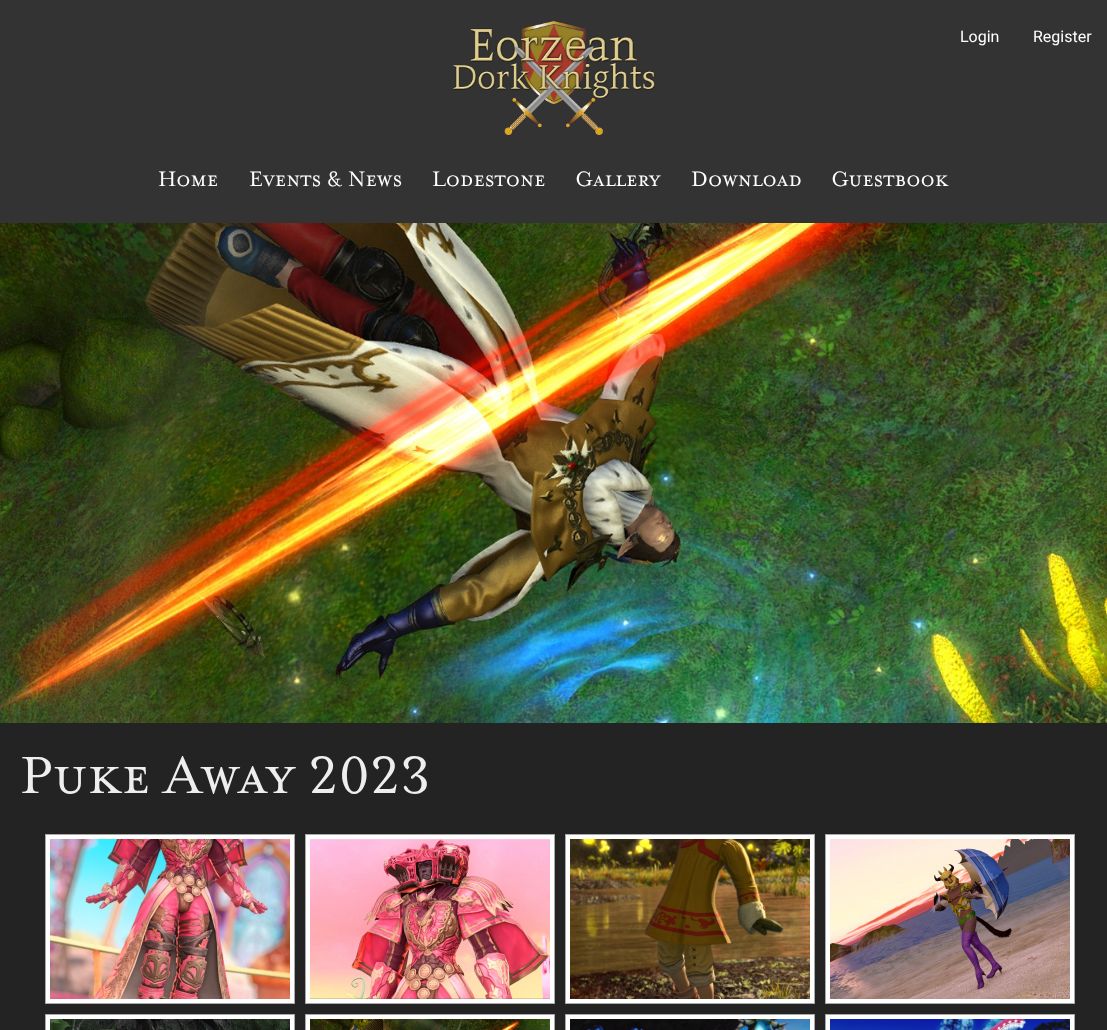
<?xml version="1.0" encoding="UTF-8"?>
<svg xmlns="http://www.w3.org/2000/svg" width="1107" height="1030">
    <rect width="100%" height="100%" fill="#232323"/>
    <rect x="0" y="0" width="1107" height="223" fill="#333333"/>
    <image x="453" y="20" width="202" height="115" href="img_01.png"/>
    <text x="960" y="42" font-family="Roboto" font-size="16" fill="#FFFFFF">Login</text>
    <text x="1033" y="42" font-family="Roboto" font-size="16" fill="#FFFFFF">Register</text>
    <text x="158" y="186" font-family="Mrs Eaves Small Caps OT" font-size="24" fill="#FFFFFF">Home</text>
    <text x="249" y="186" font-family="Mrs Eaves Small Caps OT" font-size="24" fill="#FFFFFF">Events &amp; News</text>
    <text x="432" y="186" font-family="Mrs Eaves Small Caps OT" font-size="24" fill="#FFFFFF">Lodestone</text>
    <text x="575" y="186" font-family="Mrs Eaves Small Caps OT" font-size="24" fill="#FFFFFF">Gallery</text>
    <text x="691" y="186" font-family="Mrs Eaves Small Caps OT" font-size="24" fill="#FFFFFF">Download</text>
    <text x="831" y="186" font-family="Mrs Eaves Small Caps OT" font-size="24" fill="#FFFFFF">Guestbook</text>
    <image x="0" y="223" width="1107" height="500" href="img_02.png"/>
    <text x="20" y="793" font-family="Mrs Eaves Small Caps OT" font-size="60" fill="#EEEEEE">Puke Away 2023</text>
    <rect x="45.5" y="834.5" width="249" height="169" fill="#FFFFFF" stroke="#A9A9A9"/>
    <image x="50" y="839" width="240" height="160" href="img_03.png"/>
    <rect x="305.5" y="834.5" width="249" height="169" fill="#FFFFFF" stroke="#A9A9A9"/>
    <image x="310" y="839" width="240" height="160" href="img_04.png"/>
    <rect x="565.5" y="834.5" width="249" height="169" fill="#FFFFFF" stroke="#A9A9A9"/>
    <image x="570" y="839" width="240" height="160" href="img_05.png"/>
    <rect x="825.5" y="834.5" width="249" height="169" fill="#FFFFFF" stroke="#A9A9A9"/>
    <image x="830" y="839" width="240" height="160" href="img_06.png"/>
    <rect x="45.5" y="1014.5" width="249" height="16" fill="#FFFFFF" stroke="#A9A9A9"/>
    <image x="50" y="1019" width="240" height="11" href="img_07.png"/>
    <rect x="305.5" y="1014.5" width="249" height="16" fill="#FFFFFF" stroke="#A9A9A9"/>
    <image x="310" y="1019" width="240" height="11" href="img_08.png"/>
    <rect x="565.5" y="1014.5" width="249" height="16" fill="#FFFFFF" stroke="#A9A9A9"/>
    <image x="570" y="1019" width="240" height="11" href="img_09.png"/>
    <rect x="825.5" y="1014.5" width="249" height="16" fill="#FFFFFF" stroke="#A9A9A9"/>
    <image x="830" y="1019" width="240" height="11" href="img_10.png"/>
</svg>
